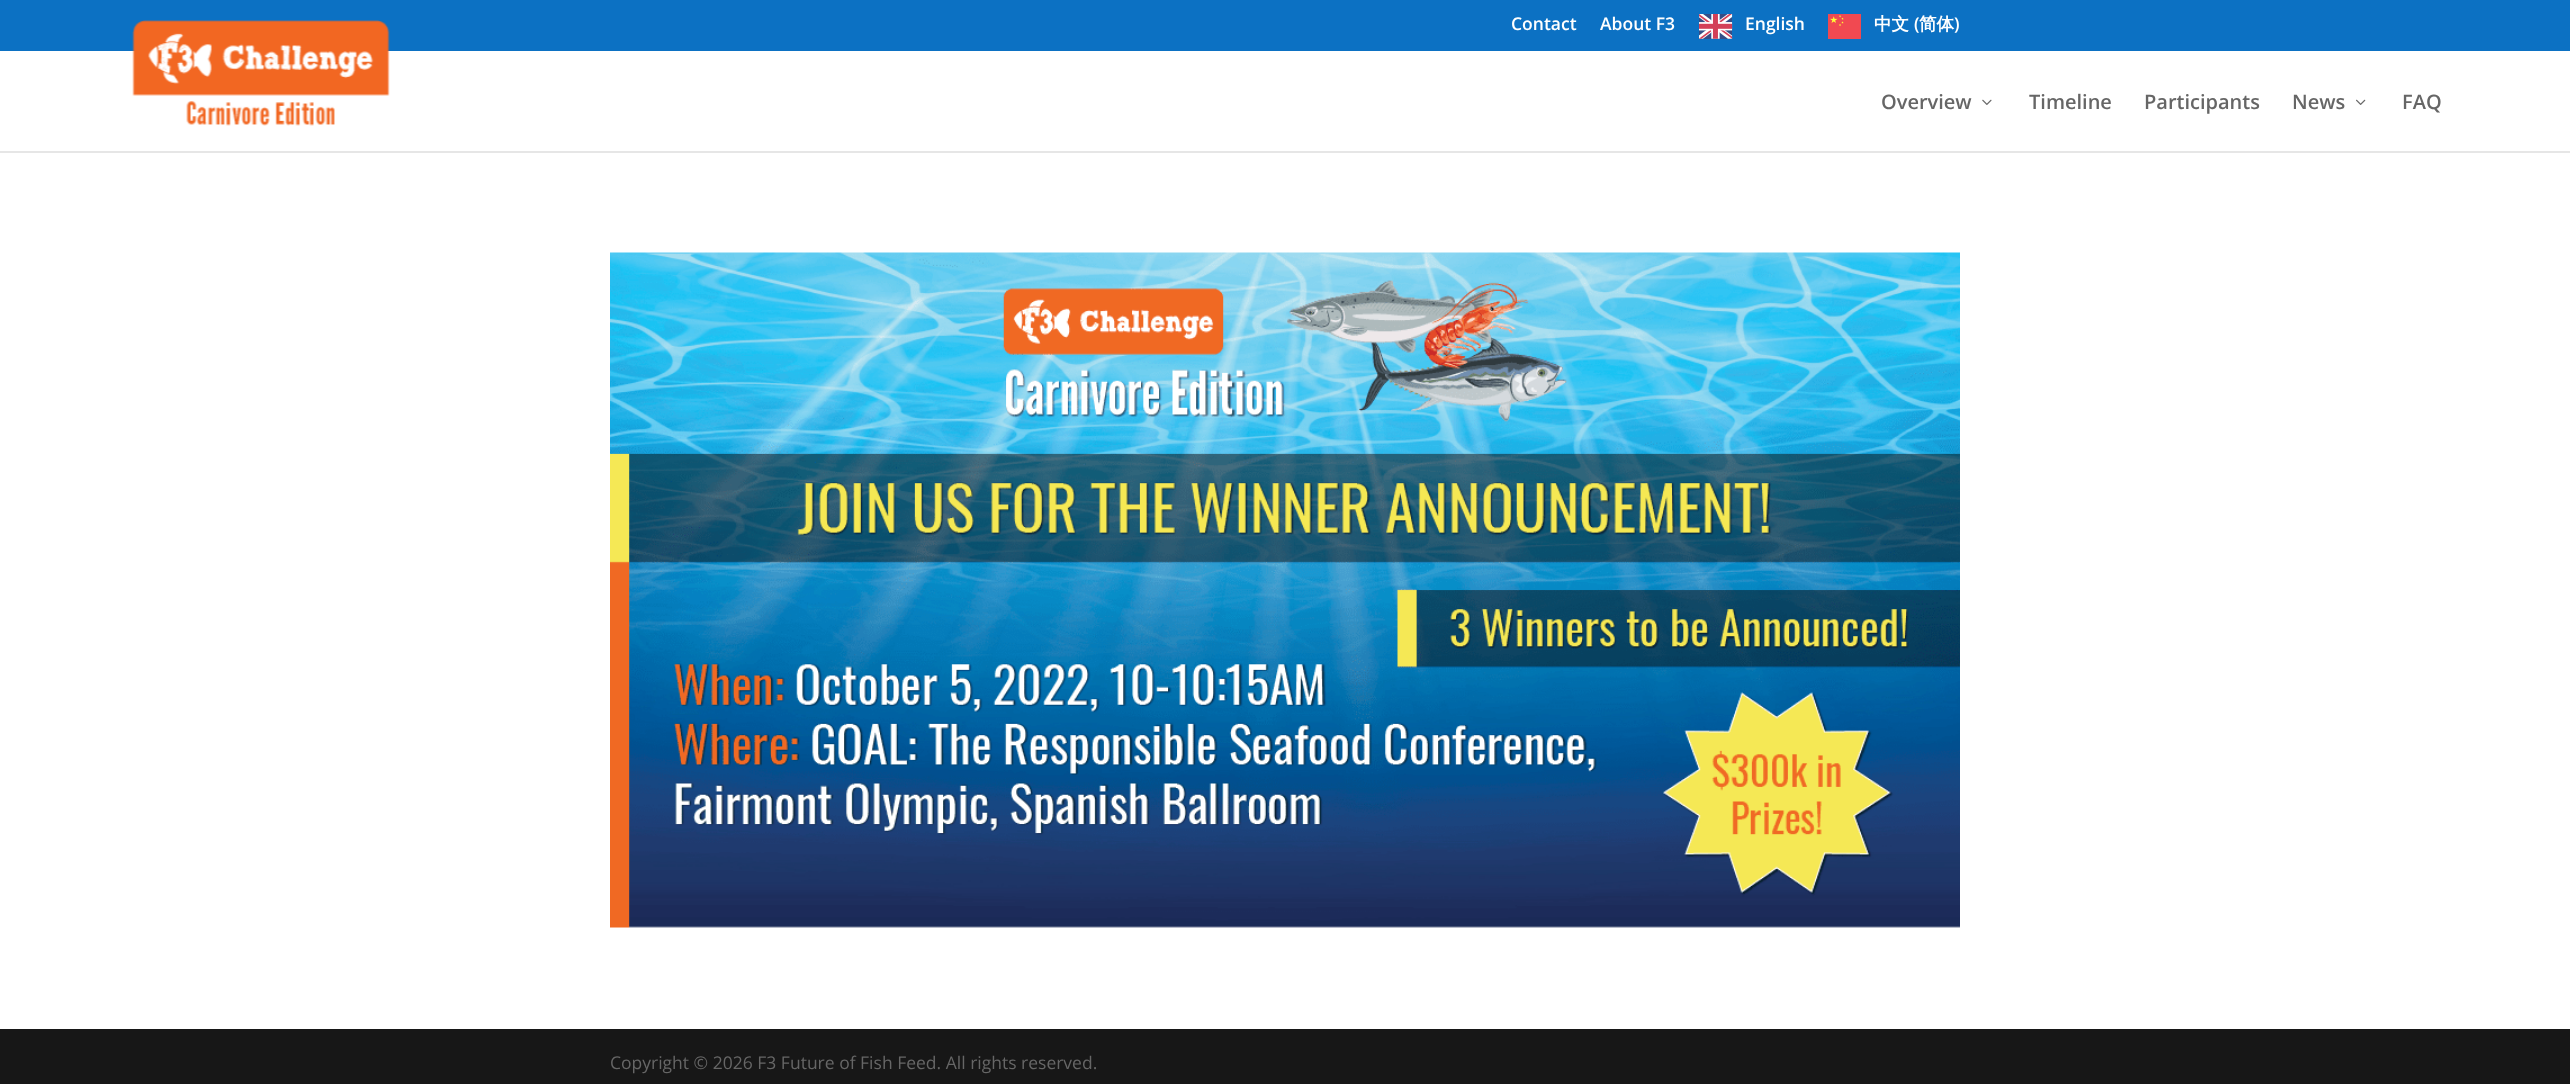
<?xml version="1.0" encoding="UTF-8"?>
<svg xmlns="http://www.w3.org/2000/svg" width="2570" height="1084">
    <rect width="100%" height="100%" fill="#171717"/>
    <rect x="0" y="0" width="2570" height="51" fill="#0C71C3"/>
    <text x="1511" y="30" font-family="Open Sans" font-size="17.5" font-weight="600" fill="#FFFFFF">Contact</text>
    <text x="1600" y="30" font-family="Open Sans" font-size="17.5" font-weight="600" fill="#FFFFFF">About F3</text>
    <image x="1699" y="14" width="34" height="25" href="img_01.png"/>
    <text x="1745" y="30" font-family="Open Sans" font-size="17.5" font-weight="600" fill="#FFFFFF">English</text>
    <image x="1828" y="14" width="33" height="25" href="img_02.png"/>
    <text x="1874" y="30" font-family="WenQuanYi Zen Hei" font-size="17.5" font-weight="700" fill="#FFFFFF">中文</text>
    <text x="1914" y="30" font-family="Open Sans" font-size="17.5" font-weight="600" fill="#FFFFFF">(</text>
    <text x="1919" y="30" font-family="WenQuanYi Zen Hei" font-size="17.5" font-weight="700" fill="#FFFFFF">简体</text>
    <text x="1954" y="30" font-family="Open Sans" font-size="17.5" font-weight="600" fill="#FFFFFF">)</text>
    <rect x="0" y="151" width="2570" height="2" fill="#E6E6E6"/>
    <rect x="0" y="51" width="2570" height="100" fill="#FFFFFF"/>
    <image x="132" y="20" width="258" height="106" href="img_03.png"/>
    <text x="1881" y="109" font-family="Open Sans" font-size="20" font-weight="600" fill="#666666">Overview</text>
    <image x="1982" y="99" width="10" height="6" href="img_04.png"/>
    <text x="2029" y="109" font-family="Open Sans" font-size="20" font-weight="600" fill="#666666">Timeline</text>
    <text x="2144" y="109" font-family="Open Sans" font-size="20" font-weight="600" fill="#666666">Participants</text>
    <text x="2292" y="109" font-family="Open Sans" font-size="20" font-weight="600" fill="#666666">News</text>
    <image x="2356" y="99" width="10" height="6" href="img_05.png"/>
    <text x="2402" y="109" font-family="Open Sans" font-size="20" font-weight="600" fill="#666666">FAQ</text>
    <rect x="0" y="153" width="2570" height="876" fill="#FFFFFF"/>
    <image x="610" y="252" width="1350" height="676" href="img_06.png"/>
    <text x="610" y="1069" font-family="Open Sans" font-size="17.5" fill="#666666">Copyright © 2026 F3 Future of Fish Feed. All rights reserved.</text>
</svg>
